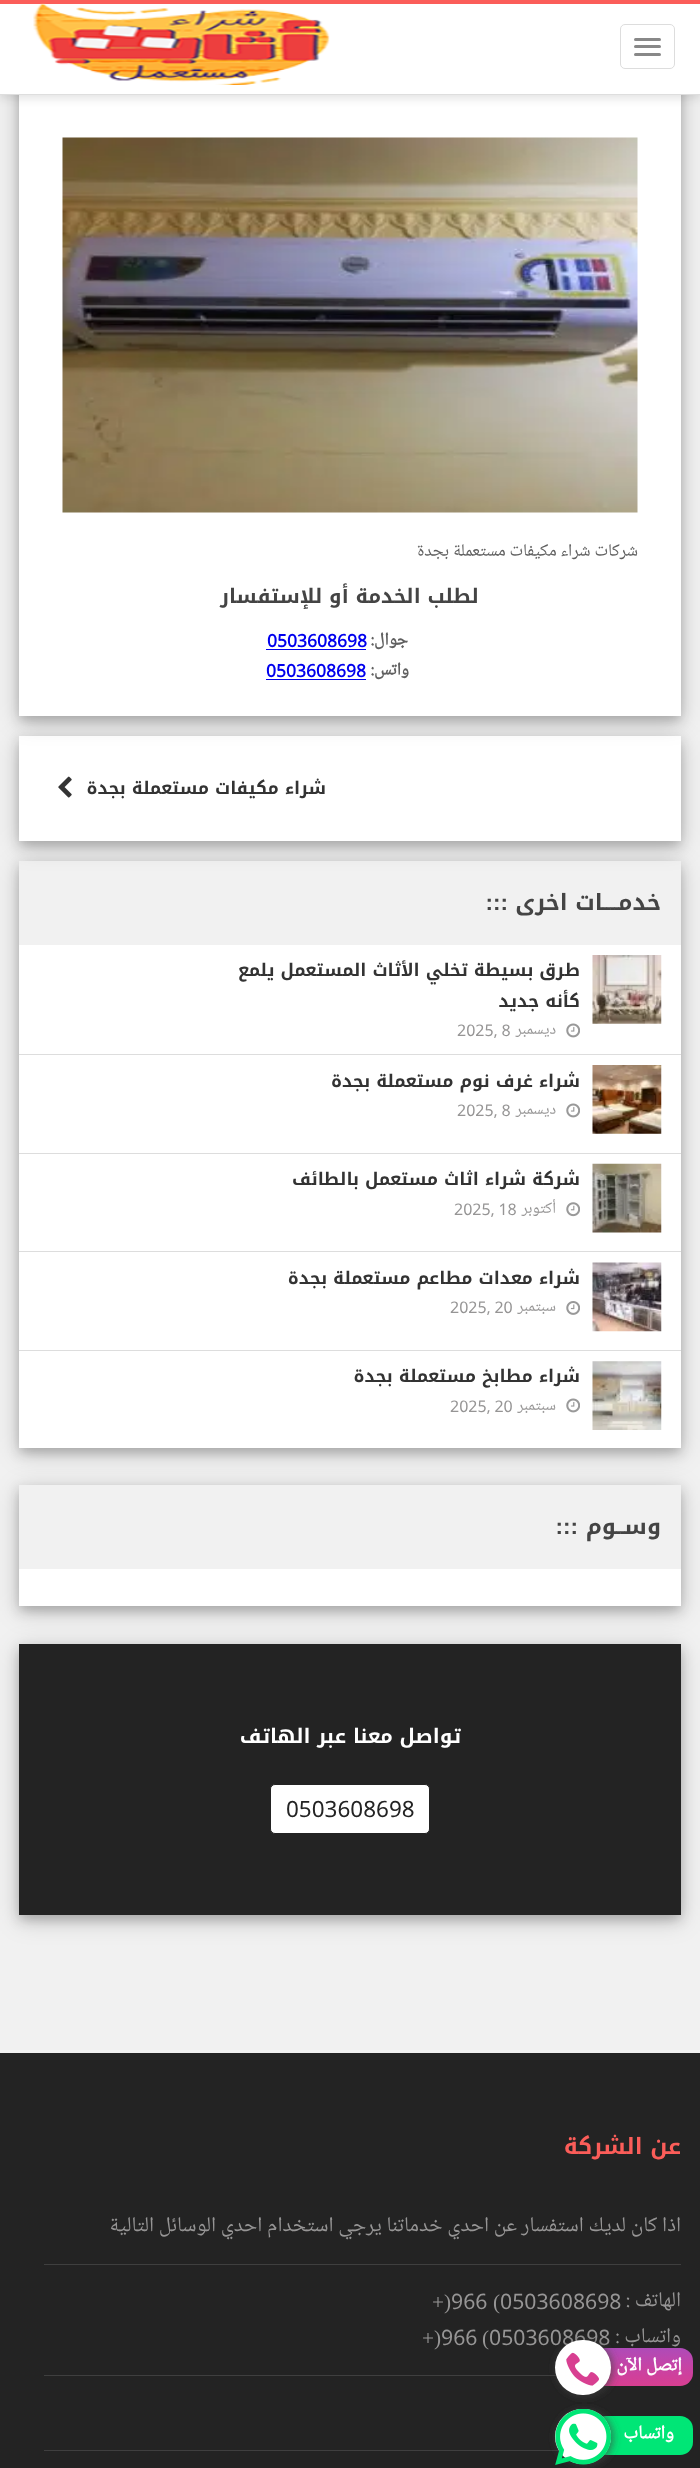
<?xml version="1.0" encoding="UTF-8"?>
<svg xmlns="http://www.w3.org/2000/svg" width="700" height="2468">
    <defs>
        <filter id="blur1" x="-50%" y="-200%" width="200%" height="500%"><feGaussianBlur stdDeviation="12.5"/></filter>
        <filter id="blur2" x="-50%" y="-200%" width="200%" height="500%"><feGaussianBlur stdDeviation="6"/></filter>
        <filter id="blur3" x="-50%" y="-200%" width="200%" height="500%"><feGaussianBlur stdDeviation="4.5"/></filter>
        <clipPath id="clip1"><path d="M 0 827 H 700 V 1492 H 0 Z M 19 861 H 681 V 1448 H 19 Z" clip-rule="evenodd"/></clipPath>
        <clipPath id="clip2"><path d="M 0 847 H 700 V 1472 H 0 Z M 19 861 H 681 V 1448 H 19 Z" clip-rule="evenodd"/></clipPath>
        <clipPath id="clip3"><path d="M 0 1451 H 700 V 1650 H 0 Z M 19 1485 H 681 V 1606 H 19 Z" clip-rule="evenodd"/></clipPath>
        <clipPath id="clip4"><path d="M 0 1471 H 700 V 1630 H 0 Z M 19 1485 H 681 V 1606 H 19 Z" clip-rule="evenodd"/></clipPath>
        <linearGradient id="g1" gradientUnits="userSpaceOnUse" x1="643" y1="2386" x2="643" y2="2348"><stop offset="0" stop-color="#D83F91"/><stop offset="0.25" stop-color="#D0409B"/><stop offset="0.5" stop-color="#C743A5"/><stop offset="0.75" stop-color="#BB47AF"/><stop offset="1" stop-color="#AE4BB8"/></linearGradient>
        <filter id="blur4" x="-50%" y="-200%" width="200%" height="500%"><feGaussianBlur stdDeviation="4"/></filter>
    </defs>
    <rect width="100%" height="100%" fill="#F1F1F1"/>
    <rect x="19" y="741" width="662" height="105" fill="#000000" fill-opacity="0.19" filter="url(#blur1)"/>
    <rect x="19" y="741" width="662" height="105" fill="#000000" fill-opacity="0.2" filter="url(#blur2)"/>
    <rect x="19" y="736" width="662" height="105" fill="#FFFFFF"/>
    <rect x="19" y="14" width="662" height="707" fill="#000000" fill-opacity="0.19" filter="url(#blur1)"/>
    <rect x="19" y="14" width="662" height="707" fill="#000000" fill-opacity="0.2" filter="url(#blur2)"/>
    <rect x="19" y="95" width="662" height="621" fill="#FFFFFF"/>
    <rect x="-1" y="1" width="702" height="98" fill="#000000" fill-opacity="0.1" filter="url(#blur3)"/>
    <rect x="0" y="4" width="700" height="90" fill="#FFFFFF"/>
    <rect x="0" y="0" width="700" height="4" fill="#FB5D59"/>
    <rect x="0" y="94" width="700" height="1" fill="#DEDEDE"/>
    <rect x="620.5" y="24.5" width="54" height="44" rx="4.5" fill="none" stroke="#DDDDDD"/>
    <rect x="634" y="38" width="27" height="3" rx="1.5" fill="#888888"/>
    <rect x="634" y="45" width="27" height="3" rx="1.5" fill="#888888"/>
    <rect x="634" y="53" width="27" height="3" rx="1.5" fill="#888888"/>
    <image x="33" y="3" width="297" height="82" href="img_01.png"/>
    <image x="62" y="137" width="576" height="376" href="img_02.png"/>
    <text x="638" y="558" font-family="Noto Naskh Arabic UI" font-size="17.5" direction="rtl" fill="#606060">شركات شراء مكيفات مستعملة بجدة</text>
    <text x="479" y="603" font-family="Noto Kufi Arabic" font-size="20" font-weight="700" direction="rtl" fill="#444444">لطلب الخدمة أو للإستفسار</text>
    <text x="408" y="647" font-family="Noto Naskh Arabic UI" font-size="17.5" font-weight="700" direction="rtl" fill="#606060">جوال:</text>
    <text x="267" y="647" font-family="Noto Naskh Arabic UI" font-size="17.5" font-weight="700" fill="#0000EE">0503608698</text>
    <rect x="266" y="649" width="100" height="1" fill="#0000EE"/>
    <text x="409" y="677" font-family="Noto Naskh Arabic UI" font-size="17.5" font-weight="700" direction="rtl" fill="#606060">واتس:</text>
    <text x="266" y="677" font-family="Noto Naskh Arabic UI" font-size="17.5" font-weight="700" fill="#0000EE">0503608698</text>
    <rect x="266" y="679" width="100" height="1" fill="#0000EE"/>
    <text x="326" y="794" font-family="Noto Kufi Arabic" font-size="17.5" font-weight="700" direction="rtl" fill="#333333">شراء مكيفات مستعملة بجدة</text>
    <image x="58" y="776" width="14" height="22" href="img_03.png"/>
    <g clip-path="url(#clip1)">
        <rect x="19" y="866" width="662" height="587" fill="#000000" fill-opacity="0.19" filter="url(#blur1)"/>
    </g>
    <g clip-path="url(#clip2)">
        <rect x="19" y="866" width="662" height="587" fill="#000000" fill-opacity="0.2" filter="url(#blur2)"/>
    </g>
    <text x="661" y="910" font-family="Noto Kufi Arabic" font-size="22.5" font-weight="700" direction="rtl" fill="#444444">خدمــــات اخرى</text>
    <text x="508" y="910" font-family="Liberation Sans" font-size="22.5" font-weight="700" direction="rtl" fill="#444444">:::</text>
    <rect x="19" y="945" width="662" height="503" fill="#FFFFFF"/>
    <rect x="19" y="1054" width="662" height="1" fill="#DDDDDD"/>
    <image x="592" y="955" width="70" height="69" href="img_04.png"/>
    <text font-family="Noto Kufi Arabic" font-size="17.5" font-weight="700" direction="rtl" fill="#333333">
        <tspan x="580" y="976">طرق بسيطة تخلي الأثاث المستعمل يلمع</tspan>
        <tspan x="580" y="1007">كأنه جديد</tspan>
    </text>
    <image x="566" y="1023" width="14" height="15" href="img_05.png"/>
    <text x="556" y="1036" font-family="Noto Naskh Arabic UI" font-size="16" direction="rtl" fill="#969595">ديسمبر</text>
    <text x="457" y="1036" font-family="Noto Naskh Arabic UI" font-size="16" fill="#969595">2025, 8</text>
    <rect x="19" y="1153" width="662" height="1" fill="#DDDDDD"/>
    <image x="592" y="1065" width="70" height="69" href="img_06.png"/>
    <text x="580" y="1087" font-family="Noto Kufi Arabic" font-size="17.5" font-weight="700" direction="rtl" fill="#333333">شراء غرف نوم مستعملة بجدة</text>
    <image x="566" y="1103" width="14" height="15" href="img_05.png"/>
    <text x="556" y="1116" font-family="Noto Naskh Arabic UI" font-size="16" direction="rtl" fill="#969595">ديسمبر</text>
    <text x="457" y="1116" font-family="Noto Naskh Arabic UI" font-size="16" fill="#969595">2025, 8</text>
    <rect x="19" y="1251" width="662" height="1" fill="#DDDDDD"/>
    <image x="592" y="1163" width="70" height="70" href="img_07.png"/>
    <text x="580" y="1185" font-family="Noto Kufi Arabic" font-size="17.5" font-weight="700" direction="rtl" fill="#333333">شركة شراء اثاث مستعمل بالطائف</text>
    <image x="566" y="1202" width="14" height="15" href="img_08.png"/>
    <text x="556" y="1215" font-family="Noto Naskh Arabic UI" font-size="16" direction="rtl" fill="#969595">أكتوبر</text>
    <text x="454" y="1215" font-family="Noto Naskh Arabic UI" font-size="16" fill="#969595">2025, 18</text>
    <rect x="19" y="1350" width="662" height="1" fill="#DDDDDD"/>
    <image x="592" y="1262" width="70" height="70" href="img_09.png"/>
    <text x="580" y="1284" font-family="Noto Kufi Arabic" font-size="17.5" font-weight="700" direction="rtl" fill="#333333">شراء معدات مطاعم مستعملة بجدة</text>
    <image x="566" y="1301" width="14" height="14" href="img_10.png"/>
    <text x="556" y="1313" font-family="Noto Naskh Arabic UI" font-size="16" direction="rtl" fill="#969595">سبتمبر</text>
    <text x="450" y="1313" font-family="Noto Naskh Arabic UI" font-size="16" fill="#969595">2025, 20</text>
    <image x="592" y="1361" width="70" height="69" href="img_11.png"/>
    <text x="580" y="1382" font-family="Noto Kufi Arabic" font-size="17.5" font-weight="700" direction="rtl" fill="#333333">شراء مطابخ مستعملة بجدة</text>
    <image x="566" y="1398" width="14" height="15" href="img_05.png"/>
    <text x="556" y="1412" font-family="Noto Naskh Arabic UI" font-size="16" direction="rtl" fill="#969595">سبتمبر</text>
    <text x="450" y="1412" font-family="Noto Naskh Arabic UI" font-size="16" fill="#969595">2025, 20</text>
    <g clip-path="url(#clip3)">
        <rect x="19" y="1490" width="662" height="121" fill="#000000" fill-opacity="0.19" filter="url(#blur1)"/>
    </g>
    <g clip-path="url(#clip4)">
        <rect x="19" y="1490" width="662" height="121" fill="#000000" fill-opacity="0.2" filter="url(#blur2)"/>
    </g>
    <text x="661" y="1534" font-family="Noto Kufi Arabic" font-size="22.5" font-weight="700" direction="rtl" fill="#444444">وســوم</text>
    <text x="578" y="1534" font-family="Liberation Sans" font-size="22.5" font-weight="700" direction="rtl" fill="#444444">:::</text>
    <rect x="19" y="1569" width="662" height="37" fill="#FFFFFF"/>
    <rect x="19" y="1649" width="662" height="271" fill="#000000" fill-opacity="0.19" filter="url(#blur1)"/>
    <rect x="19" y="1649" width="662" height="271" fill="#000000" fill-opacity="0.2" filter="url(#blur2)"/>
    <rect x="19" y="1644" width="662" height="271" fill="#232323"/>
    <text x="461" y="1743" font-family="Noto Kufi Arabic" font-size="20" font-weight="700" direction="rtl" fill="#FFFFFF">تواصل معنا عبر الهاتف</text>
    <rect x="270.5" y="1784.5" width="159" height="49" rx="4.5" fill="#FFFFFF" stroke="#232323"/>
    <text x="286" y="1817" font-family="Noto Naskh Arabic UI" font-size="22.5" fill="#232323">0503608698</text>
    <rect x="0" y="2053" width="700" height="415" fill="#232323"/>
    <text x="681" y="2154" font-family="Noto Kufi Arabic" font-size="22.5" font-weight="700" direction="rtl" fill="#FB5D59">عن الشركة</text>
    <text x="681" y="2234" font-family="Noto Naskh Arabic UI" font-size="21.25" direction="rtl" fill="#969595">اذا كان لديك استفسار عن احدي خدماتنا يرجي استخدام احدي الوسائل التالية</text>
    <rect x="44" y="2264" width="637" height="1" fill="#3F3F3F"/>
    <text x="681" y="2309" font-family="Noto Naskh Arabic UI" font-size="21.25" direction="rtl" fill="#969595">الهاتف :</text>
    <text x="500" y="2309" font-family="Noto Naskh Arabic UI" font-size="21.25" fill="#969595">0503608698</text>
    <text x="493" y="2309" font-family="Liberation Serif" font-size="21.25" fill="#969595">(</text>
    <text x="451" y="2309" font-family="Noto Naskh Arabic UI" font-size="21.25" fill="#969595">966</text>
    <text x="432" y="2309" font-family="Liberation Serif" font-size="21.25" fill="#969595">+)</text>
    <text x="681" y="2345" font-family="Noto Naskh Arabic UI" font-size="21.25" direction="rtl" fill="#969595">واتساب :</text>
    <text x="489" y="2345" font-family="Noto Naskh Arabic UI" font-size="21.25" fill="#969595">0503608698</text>
    <text x="482" y="2345" font-family="Liberation Serif" font-size="21.25" fill="#969595">(</text>
    <text x="441" y="2345" font-family="Noto Naskh Arabic UI" font-size="21.25" fill="#969595">966</text>
    <text x="422" y="2345" font-family="Liberation Serif" font-size="21.25" fill="#969595">+)</text>
    <rect x="44" y="2375" width="513" height="1" fill="#3F3F3F"/>
    <rect x="44" y="2450" width="516" height="1" fill="#3F3F3F"/>
    <rect x="593" y="2348" width="100" height="38" rx="13" fill="url(#g1)"/>
    <text x="682" y="2373" font-family="Noto Naskh Arabic UI" font-size="19" font-weight="700" direction="rtl" fill="#FFFFFF">إتصل الآن</text>
    <rect x="556" y="2341" width="57" height="55" rx="27.5" fill="#444444" fill-opacity="0.71" filter="url(#blur4)"/>
    <rect x="555" y="2340" width="56" height="55" rx="27.5" fill="#FFFFFF"/>
    <image x="566" y="2352" width="33" height="34" href="img_12.png"/>
    <rect x="593" y="2416" width="100" height="39" rx="13" fill="#00E676"/>
    <text x="674" y="2441" font-family="Noto Naskh Arabic UI" font-size="19" font-weight="700" direction="rtl" fill="#FFFFFF">واتساب</text>
    <rect x="556" y="2410" width="57" height="55" rx="27.5" fill="#444444" fill-opacity="0.71" filter="url(#blur4)"/>
    <rect x="555" y="2409" width="56" height="55" rx="27.5" fill="#FFFFFF"/>
    <image x="555" y="2409" width="56" height="56" href="img_13.png"/>
</svg>
